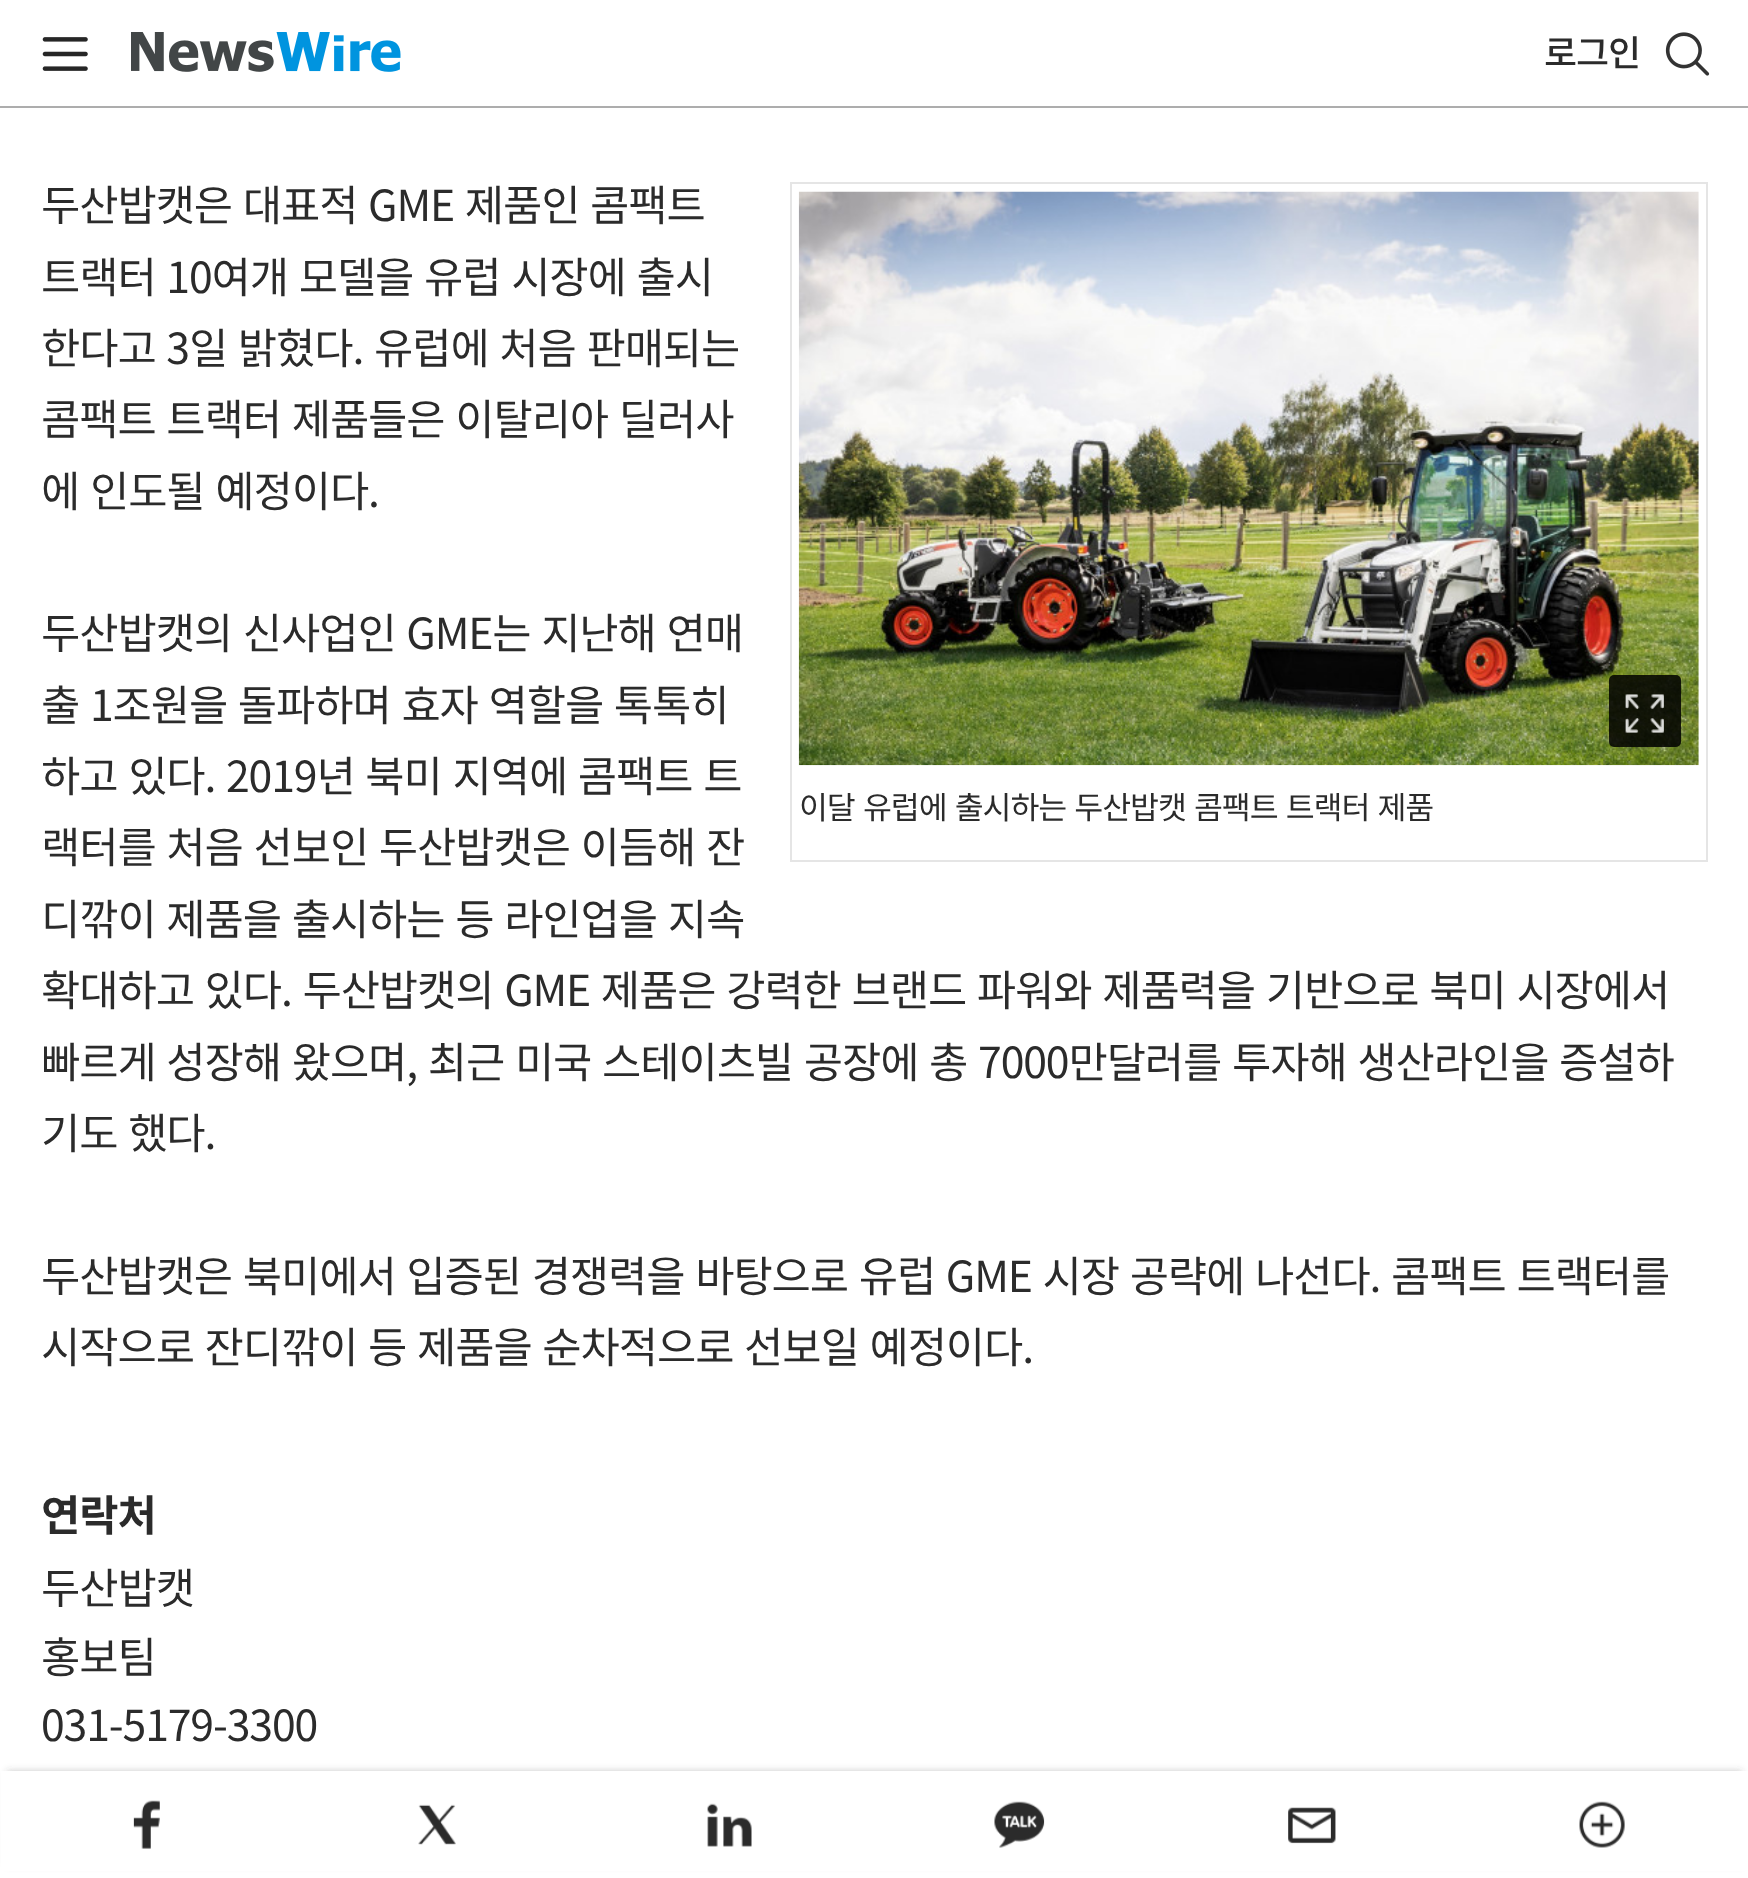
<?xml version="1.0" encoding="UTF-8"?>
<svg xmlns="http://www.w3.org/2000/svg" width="1748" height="1878">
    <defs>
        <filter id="blur1" x="-50%" y="-200%" width="200%" height="500%"><feGaussianBlur stdDeviation="3.5"/></filter>
    </defs>
    <rect width="100%" height="100%" fill="#FFFFFF"/>
    <rect x="0" y="106" width="1748" height="2" fill="#ADADAD"/>
    <image x="42" y="37" width="46" height="34" href="img_01.png"/>
    <image x="131" y="32" width="270" height="40" href="img_02.png"/>
    <text x="1544" y="66" font-family="Noto Sans KR" font-size="36" font-weight="500" letter-spacing="-1.12" fill="#2B2B2B">로그인</text>
    <image x="1665" y="32" width="45" height="44" href="img_03.png"/>
    <text font-family="Noto Sans KR" font-size="42.75" letter-spacing="-1.12" fill="#2B2B2B">
        <tspan x="41" y="221" word-spacing="2.25">두산밥캣은 대표적 GME 제품인 콤팩트</tspan>
        <tspan x="41" y="293" word-spacing="2.25">트랙터 10여개 모델을 유럽 시장에 출시</tspan>
        <tspan x="41" y="364" word-spacing="2.25">한다고 3일 밝혔다. 유럽에 처음 판매되는</tspan>
        <tspan x="41" y="435" word-spacing="2.25">콤팩트 트랙터 제품들은 이탈리아 딜러사</tspan>
        <tspan x="41" y="507" word-spacing="2.25">에 인도될 예정이다.</tspan>
    </text>
    <text font-family="Noto Sans KR" font-size="42.75" letter-spacing="-1.12" fill="#2B2B2B">
        <tspan x="41" y="649" word-spacing="2.25">두산밥캣의 신사업인 GME는 지난해 연매</tspan>
        <tspan x="41" y="721" word-spacing="2.25">출 1조원을 돌파하며 효자 역할을 톡톡히</tspan>
        <tspan x="41" y="792" word-spacing="2.25">하고 있다. 2019년 북미 지역에 콤팩트 트</tspan>
    </text>
    <rect x="791" y="183" width="916" height="678" fill="none" stroke="#E5E5E5" stroke-width="2"/>
    <image x="798" y="191" width="901" height="575" href="img_04.png"/>
    <rect x="1609" y="675" width="72" height="72" rx="5" fill="#000000" fill-opacity="0.85"/>
    <image x="1625" y="694" width="39" height="39" href="img_05.png"/>
    <text x="799" y="819" word-spacing="2.25" font-family="Noto Sans KR" font-size="31.5" letter-spacing="-1.12" fill="#2B2B2B">이달 유럽에 출시하는 두산밥캣 콤팩트 트랙터 제품</text>
    <text font-family="Noto Sans KR" font-size="42.75" letter-spacing="-1.12" fill="#2B2B2B">
        <tspan x="41" y="863" word-spacing="2.25">랙터를 처음 선보인 두산밥캣은 이듬해 잔</tspan>
        <tspan x="41" y="935" word-spacing="2.25">디깎이 제품을 출시하는 등 라인업을 지속</tspan>
        <tspan x="41" y="1006" word-spacing="2.25">확대하고 있다. 두산밥캣의 GME 제품은 강력한 브랜드 파워와 제품력을 기반으로 북미 시장에서</tspan>
        <tspan x="41" y="1078" word-spacing="2.25">빠르게 성장해 왔으며, 최근 미국 스테이츠빌 공장에 총 7000만달러를 투자해 생산라인을 증설하</tspan>
        <tspan x="41" y="1149" word-spacing="2.25">기도 했다.</tspan>
    </text>
    <text font-family="Noto Sans KR" font-size="42.75" letter-spacing="-1.12" fill="#2B2B2B">
        <tspan x="41" y="1292" word-spacing="2.25">두산밥캣은 북미에서 입증된 경쟁력을 바탕으로 유럽 GME 시장 공략에 나선다. 콤팩트 트랙터를</tspan>
        <tspan x="41" y="1363" word-spacing="2.25">시작으로 잔디깎이 등 제품을 순차적으로 선보일 예정이다.</tspan>
    </text>
    <text x="41" y="1531" font-family="Noto Sans KR" font-size="42.75" font-weight="700" letter-spacing="-1.12" fill="#2B2B2B">연락처</text>
    <text font-family="Noto Sans KR" font-size="42.75" letter-spacing="-1.12" fill="#2B2B2B">
        <tspan x="41" y="1604">두산밥캣</tspan>
        <tspan x="41" y="1673">홍보팀</tspan>
        <tspan x="41" y="1741">031-5179-3300</tspan>
    </text>
    <rect x="7" y="1771" width="1735" height="94" fill="#444444" fill-opacity="0.3" filter="url(#blur1)"/>
    <rect x="1" y="1771" width="1747" height="100" fill="#FFFFFF"/>
    <image x="133" y="1800" width="27" height="49" href="img_06.png"/>
    <image x="418" y="1804" width="38" height="41" href="img_07.png"/>
    <image x="707" y="1803" width="45" height="44" href="img_08.png"/>
    <image x="994" y="1801" width="51" height="47" href="img_09.png"/>
    <image x="1288" y="1807" width="48" height="37" href="img_10.png"/>
    <image x="1579" y="1801" width="46" height="47" href="img_11.png"/>
</svg>
